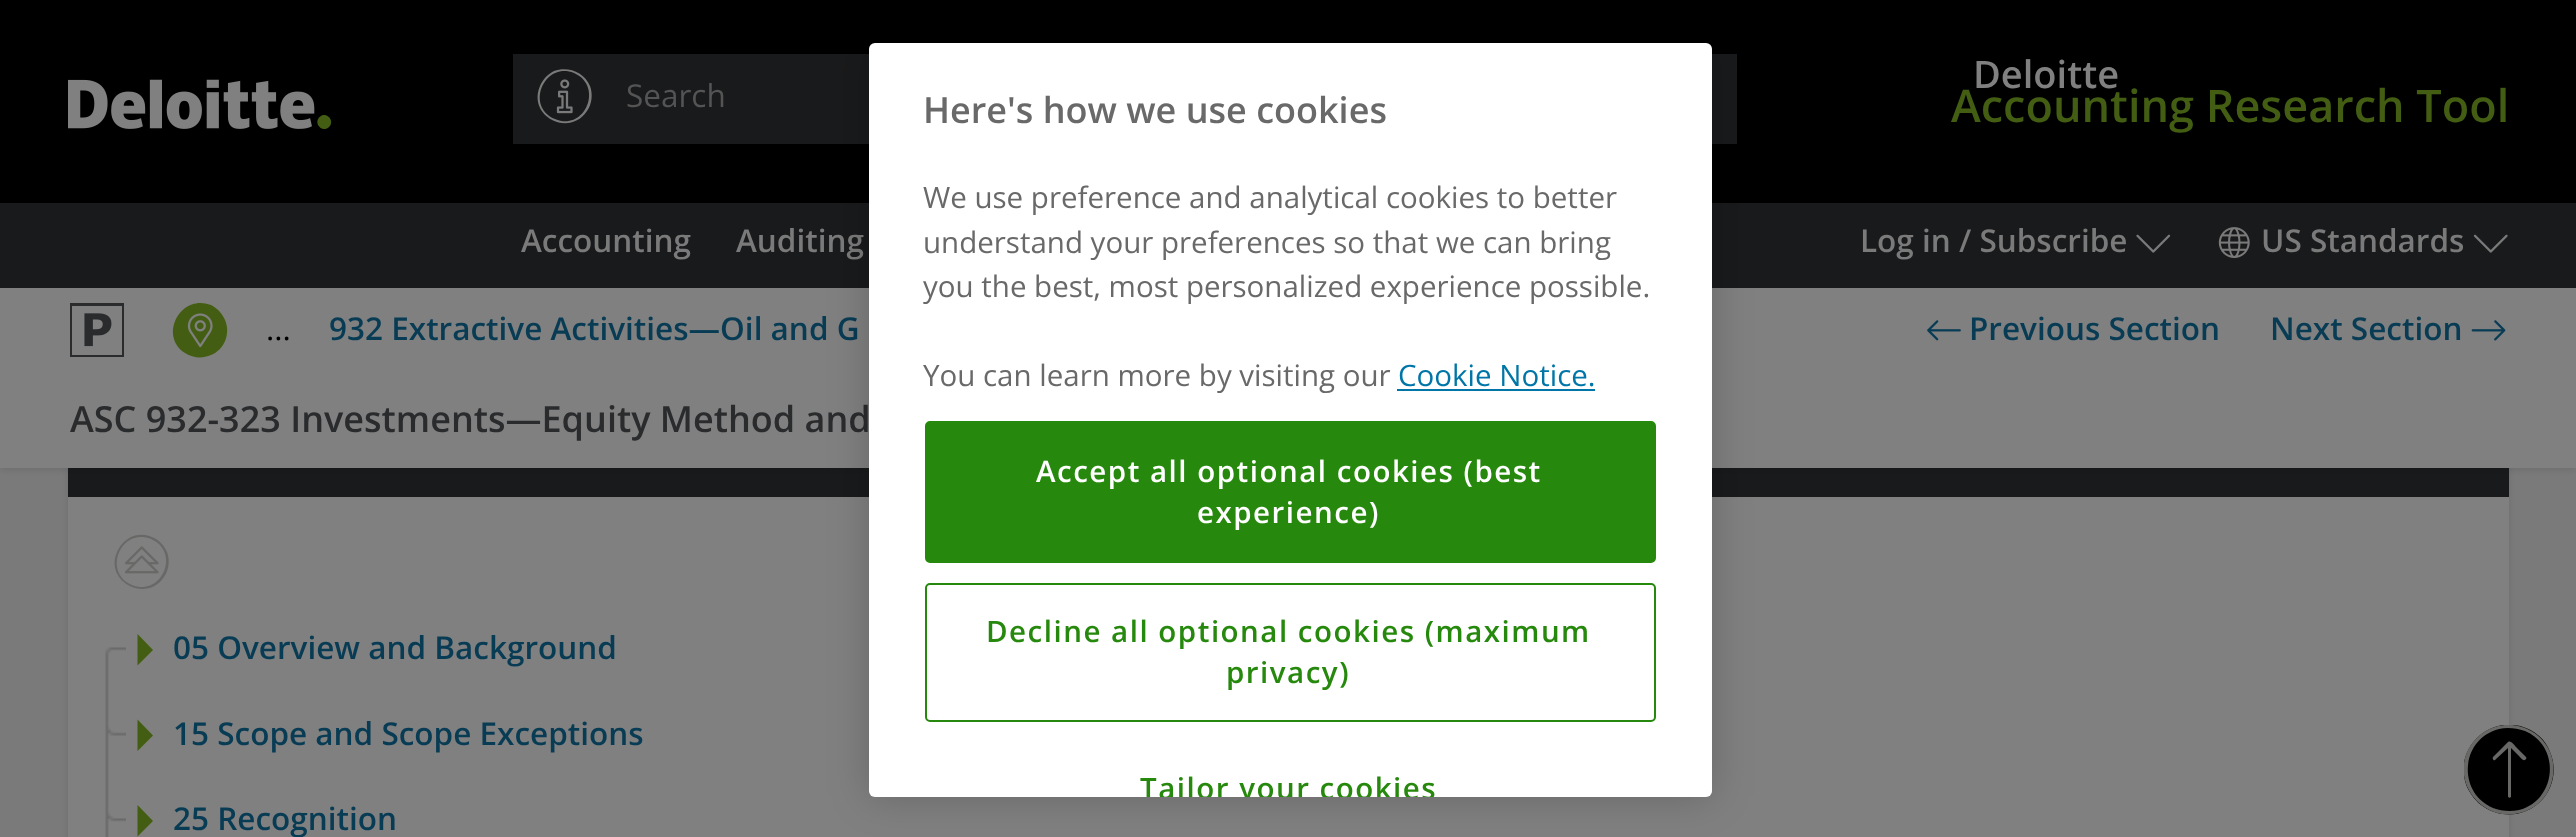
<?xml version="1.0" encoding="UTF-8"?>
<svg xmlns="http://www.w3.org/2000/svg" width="2576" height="837">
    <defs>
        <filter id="blur1" x="-50%" y="-200%" width="200%" height="500%"><feGaussianBlur stdDeviation="3.5"/></filter>
        <clipPath id="clip1"><path d="M 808 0 H 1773 V 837 H 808 Z M 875 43 H 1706 C 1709.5 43 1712 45.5 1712 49 V 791 C 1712 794.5 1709.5 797 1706 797 H 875 C 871.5 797 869 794.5 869 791 V 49 C 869 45.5 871.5 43 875 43 Z" clip-rule="evenodd"/></clipPath>
        <filter id="blur2" x="-50%" y="-200%" width="200%" height="500%"><feGaussianBlur stdDeviation="20"/></filter>
        <clipPath id="clip2"><rect x="869" y="43" width="843" height="754" rx="6"/></clipPath>
        <clipPath id="clip3"><rect x="2464" y="725" width="90" height="90"/></clipPath>
    </defs>
    <rect width="100%" height="100%" fill="#7A7A7A"/>
    <rect x="68" y="410" width="2441" height="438" fill="#000000" fill-opacity="0.1" filter="url(#blur1)"/>
    <rect x="68" y="468" width="2441" height="29" fill="#191A1B"/>
    <rect x="0" y="2" width="2576" height="468" fill="#000000" fill-opacity="0.1" filter="url(#blur1)"/>
    <rect x="0" y="0" width="2576" height="203" fill="#000000"/>
    <image x="68" y="79" width="247" height="50" href="img_01.png"/>
    <path d="M 319.5 117 C 326 110.5 335.5 120.5 329 127 C 322.5 133.5 313 123.5 319.5 117 Z" fill="#435E13"/>
    <rect x="513" y="54" width="1224" height="90" fill="#191A1B"/>
    <path d="M 554 71 C 568 66 584 72 590 86 C 593 94 592 104 587 111 C 569 138 527 116 540 86 C 543 79 548 74 554 71 Z M 574 73 C 544 61 525 107 555 119 C 585 132 604 86 574 73 Z" fill="#7A7A7A"/>
    <image x="556" y="79" width="17" height="35" href="img_02.png"/>
    <text x="626" y="107" font-family="Open Sans" font-size="31.5" fill="#545455">Search</text>
    <text x="1973" y="88" font-family="Open Sans" font-size="38" font-weight="600" fill="#808080">Deloitte</text>
    <text x="1951" y="122" font-family="Open Sans" font-size="45" font-weight="600" fill="#435E13">Accounting Research Tool</text>
    <rect x="0" y="203" width="2576" height="85" fill="#191A1B"/>
    <text x="521" y="252" font-family="Open Sans" font-size="31.5" font-weight="600" fill="#7A7A7A">Accounting</text>
    <text x="736" y="252" font-family="Open Sans" font-size="31.5" font-weight="600" fill="#7A7A7A">Auditing</text>
    <text x="1860" y="252" font-family="Open Sans" font-size="31.5" font-weight="600" fill="#7A7A7A">Log in / Subscribe</text>
    <image x="2136" y="234" width="35" height="19" href="img_03.png"/>
    <image x="2218" y="227" width="32" height="31" href="img_04.png"/>
    <text x="2261" y="252" font-family="Open Sans" font-size="31.5" font-weight="600" fill="#7A7A7A">US Standards</text>
    <image x="2473" y="234" width="35" height="19" href="img_05.png"/>
    <rect x="0" y="288" width="2576" height="180" fill="#808080"/>
    <path d="M 70 303 H 124 V 357 H 70 Z M 72 306 V 355 H 122 V 306 Z" fill="#2A2B2D"/>
    <image x="84" y="313" width="28" height="34" href="img_06.png"/>
    <path d="M 225 320 C 231 334 224 350 211 355 C 202 359 193 358 185 353 C 158 335 181 293 211 305 C 217 308 222 313 225 320 Z" fill="#435E13"/>
    <image x="187" y="313" width="26" height="35" href="img_07.png"/>
    <text x="266" y="340" font-family="Open Sans" font-size="31.5" fill="#000000">...</text>
    <text x="329" y="340" font-family="Open Sans" font-size="31.5" font-weight="600" fill="#083B54">932 Extractive Activities—Oil and G</text>
    <text x="70" y="432" font-family="Open Sans" font-size="36" font-weight="600" fill="#2A2B2D">ASC 932-323 Investments—Equity Method and</text>
    <image x="1927" y="320" width="34" height="21" href="img_08.png"/>
    <text x="1969" y="340" font-family="Open Sans" font-size="31.5" font-weight="600" fill="#083B54">Previous Section</text>
    <text x="2270" y="340" font-family="Open Sans" font-size="31.5" font-weight="600" fill="#083B54">Next Section</text>
    <image x="2471" y="320" width="35" height="21" href="img_09.png"/>
    <rect x="68" y="497" width="2441" height="340" fill="#808080"/>
    <path d="M 131 537 C 145 531 161 538 167 552 C 170 560 169 570 164 577 C 146 604 104 581 117 552 C 120 545 125 540 131 537 Z M 151 539 C 121 527 102 572 132 585 C 162 597 181 552 151 539 Z" fill="#686867"/>
    <image x="125" y="546" width="34" height="28" href="img_10.png"/>
    <image x="105" y="647" width="21" height="48" href="img_11.png"/>
    <path d="M 137.5 665.5 V 634 L 153 650 Z" fill="#435E13"/>
    <text x="173" y="659" font-family="Open Sans" font-size="31.5" font-weight="600" fill="#083B54">05 Overview and Background</text>
    <image x="105" y="694" width="21" height="87" href="img_12.png"/>
    <path d="M 137.5 751 V 719.5 L 153 735.5 Z" fill="#435E13"/>
    <text x="173" y="745" font-family="Open Sans" font-size="31.5" font-weight="600" fill="#083B54">15 Scope and Scope Exceptions</text>
    <image x="105" y="780" width="21" height="57" href="img_13.png"/>
    <path d="M 137.5 836.5 V 805 L 153 821 Z" fill="#435E13"/>
    <text x="173" y="830" font-family="Open Sans" font-size="31.5" font-weight="600" fill="#083B54">25 Recognition</text>
    <g clip-path="url(#clip1)">
        <rect x="869" y="43" width="843" height="754" rx="6" fill="#000000" fill-opacity="0.2" filter="url(#blur2)"/>
    </g>
    <rect x="869" y="43" width="843" height="754" rx="6" fill="#FFFFFF"/>
    <text x="923" y="123" font-family="Open Sans" font-size="36" font-weight="600" fill="#696969">Here's how we use cookies</text>
    <text font-family="Open Sans" font-size="29.5" fill="#696969">
        <tspan x="923" y="208">We use preference and analytical cookies to better</tspan>
        <tspan x="923" y="253">understand your preferences so that we can bring</tspan>
        <tspan x="923" y="297">you the best, most personalized experience possible.</tspan>
    </text>
    <text x="923" y="386" font-family="Open Sans" font-size="29.5" fill="#696969">You can learn more by visiting our</text>
    <text x="1398" y="386" font-family="Open Sans" font-size="29.5" fill="#0076A8">Cookie Notice.</text>
    <rect x="1397" y="389" width="198" height="2" fill="#0076A8"/>
    <rect x="926" y="422" width="729" height="140" rx="4" fill="#26890D" stroke="#26890D" stroke-width="2"/>
    <text x="1036" y="482" font-family="Open Sans" font-size="29.5" font-weight="600" letter-spacing="1.5" fill="#FFFFFF">Accept all optional cookies (best</text>
    <text x="1197" y="523" font-family="Open Sans" font-size="29.5" font-weight="600" letter-spacing="1.5" fill="#FFFFFF">experience)</text>
    <rect x="926" y="584" width="729" height="137" rx="4" fill="none" stroke="#26890D" stroke-width="2"/>
    <text x="986" y="642" font-family="Open Sans" font-size="29.5" font-weight="600" letter-spacing="1.5" fill="#26890D">Decline all optional cookies (maximum</text>
    <text x="1226" y="683" font-family="Open Sans" font-size="29.5" font-weight="600" letter-spacing="1.5" fill="#26890D">privacy)</text>
    <g clip-path="url(#clip2)">
        <text x="1140" y="799" font-family="Open Sans" font-size="29.5" font-weight="600" letter-spacing="1.5" fill="#26890D">Tailor your cookies</text>
    </g>
    <g clip-path="url(#clip3)">
        <path d="M 2550 752 C 2560 775 2549 802 2526 811 C 2512 817 2496 815 2484 807 C 2476 802 2471 795 2467 787 C 2452 750 2489 713 2526 728 C 2537 732 2546 741 2550 752 Z" fill="#000000"/>
        <path d="M 2492 728 C 2514 719 2541 730 2550 752 C 2556 766 2554 782 2546 795 C 2541 802 2534 808 2526 811 C 2489 826 2452 789 2467 752 C 2472 741 2481 732 2492 728 Z M 2525 731 C 2516 728 2507 727 2499 729 C 2460 739 2457 793 2493 808 C 2501 811 2510 812 2519 810 C 2557 800 2561 746 2525 731 Z" fill="#686867"/>
    </g>
    <path d="M 2526 757 C 2527 758 2526 759 2525 760 C 2523 761 2520 757 2519 756 L 2511 748 V 797 C 2510 798 2508 798 2508 796 V 748 L 2495 760 C 2494 761 2492 759 2493 757 L 2508 742 C 2511 740 2515 746 2516 747 Z" fill="#686867"/>
</svg>
